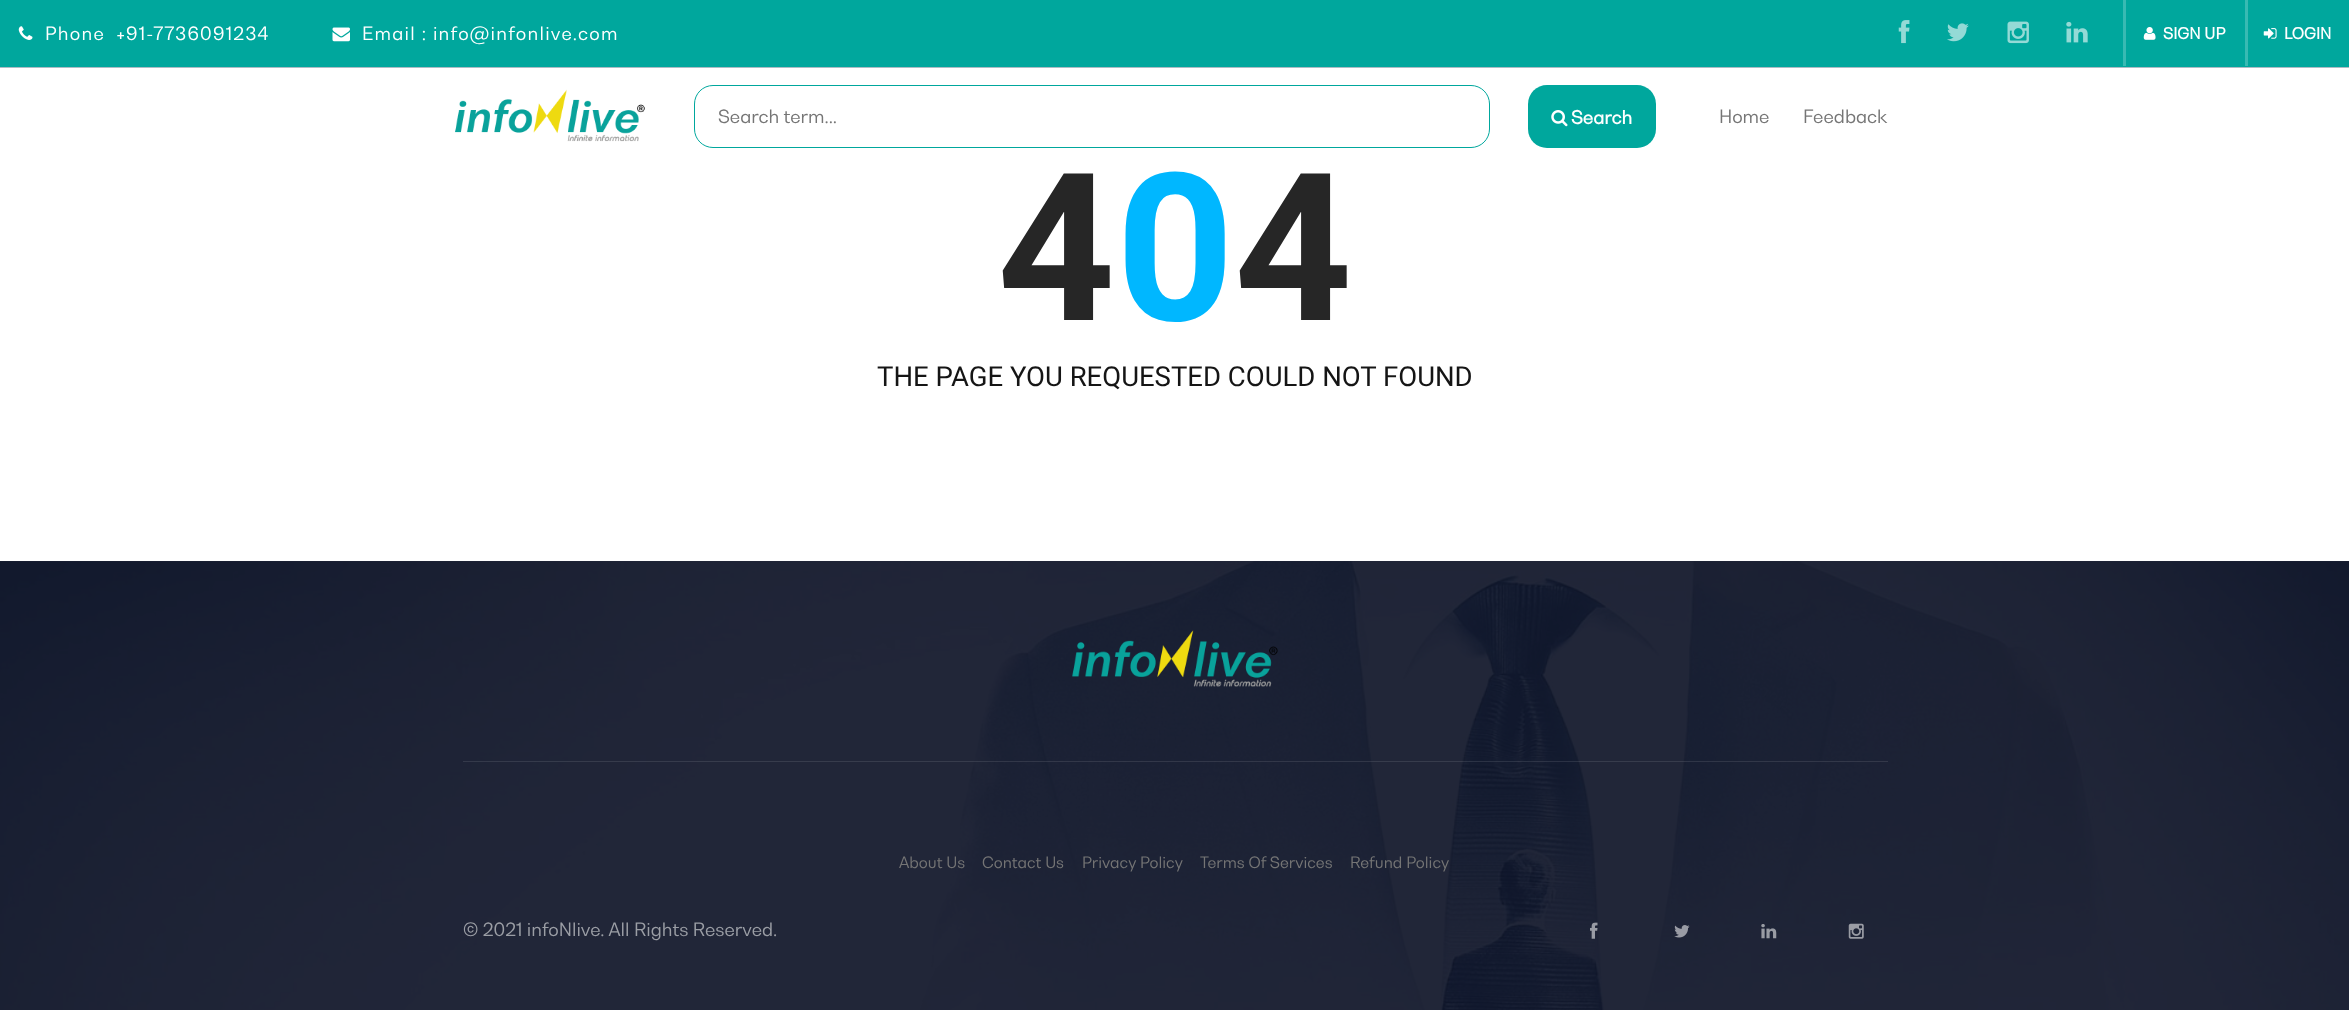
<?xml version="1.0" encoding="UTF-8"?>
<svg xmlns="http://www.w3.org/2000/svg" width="2349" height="1010">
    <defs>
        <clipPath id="clip1"><rect x="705" y="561" width="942" height="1"/></clipPath>
        <filter id="blur1" x="-50%" y="-200%" width="200%" height="500%"><feGaussianBlur stdDeviation="9.5"/></filter>
    </defs>
    <rect width="100%" height="100%" fill="#FFFFFF"/>
    <g clip-path="url(#clip1)">
        <rect x="709" y="31" width="934" height="537" fill="#000000" fill-opacity="0.1" filter="url(#blur1)"/>
    </g>
    <rect x="0" y="0" width="2349" height="67" fill="#00A79D"/>
    <rect x="2245" y="0" width="3" height="66" fill="#38BAB3"/>
    <rect x="2123" y="0" width="3" height="66" fill="#38BAB3"/>
    <image x="18" y="26" width="15" height="14" href="img_01.png"/>
    <text x="45" y="40" font-family="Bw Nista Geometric" font-size="17.5" letter-spacing="1.25" fill="#FFFFFF" xml:space="preserve">Phone  +91-7736091234</text>
    <image x="332" y="27" width="18" height="15" href="img_02.png"/>
    <text x="362" y="40" font-family="Bw Nista Geometric" font-size="17.5" letter-spacing="1.25" fill="#FFFFFF">Email : info@infonlive.com</text>
    <image x="1898" y="20" width="12" height="24" href="img_03.png"/>
    <image x="1947" y="23" width="22" height="19" href="img_04.png"/>
    <image x="2007" y="21" width="22" height="23" href="img_05.png"/>
    <image x="2066" y="21" width="22" height="22" href="img_06.png"/>
    <image x="2143" y="27" width="13" height="13" href="img_07.png"/>
    <text x="2163" y="39" font-family="Bw Nista Geometric" font-size="15" font-weight="700" fill="#FFFFFF">SIGN UP</text>
    <image x="2263" y="28" width="14" height="11" href="img_08.png"/>
    <text x="2284" y="39" font-family="Bw Nista Geometric" font-size="15" font-weight="700" fill="#FFFFFF">LOGIN</text>
    <rect x="0" y="67" width="2349" height="1" fill="#ACBCC4"/>
    <image x="455" y="89" width="190" height="53" href="img_09.png"/>
    <rect x="694.5" y="85.5" width="795" height="62" rx="18.5" fill="none" stroke="#00A79D"/>
    <text x="718" y="123" font-family="Bw Nista Geometric" font-size="17.5" fill="#757575">Search term...</text>
    <rect x="1528" y="85" width="128" height="63" rx="19" fill="#00A79D"/>
    <image x="1551" y="110" width="17" height="17" href="img_10.png"/>
    <text x="1571" y="124" font-family="Bw Nista Geometric" font-size="17.5" font-weight="700" fill="#FFFFFF">Search</text>
    <text x="1719" y="123" font-family="Bw Nista Geometric" font-size="17.5" fill="#757575">Home</text>
    <text x="1803" y="123" font-family="Bw Nista Geometric" font-size="17.5" fill="#757575">Feedback</text>
    <text x="997" y="320" font-family="Roboto" font-size="206" font-weight="700" fill="#262626">4</text>
    <text x="1116" y="320" font-family="Roboto" font-size="206" font-weight="700" fill="#00B7FF">0</text>
    <text x="1234" y="320" font-family="Roboto" font-size="206" font-weight="700" fill="#262626">4</text>
    <text x="877" y="386" font-family="Roboto" font-size="27.5" fill="#151515">THE PAGE YOU REQUESTED COULD NOT FOUND</text>
    <image x="0" y="561" width="2349" height="449" href="img_11.png"/>
    <rect x="0" y="561" width="2349" height="449" fill="#0E1427" fill-opacity="0.92"/>
    <rect x="463" y="761" width="1425" height="1" fill="#FFFFFF" fill-opacity="0.1"/>
    <image x="1072" y="630" width="206" height="57" href="img_12.png"/>
    <text x="899" y="868" font-family="Bw Nista Geometric" font-size="15" fill="#757575">About Us</text>
    <text x="982" y="868" font-family="Bw Nista Geometric" font-size="15" fill="#757575">Contact Us</text>
    <text x="1082" y="868" font-family="Bw Nista Geometric" font-size="15" fill="#757575">Privacy Policy</text>
    <text x="1200" y="868" font-family="Bw Nista Geometric" font-size="15" fill="#757575">Terms Of Services</text>
    <text x="1350" y="868" font-family="Bw Nista Geometric" font-size="15" fill="#757575">Refund Policy</text>
    <text x="463" y="936" font-family="Bw Nista Geometric" font-size="17.5" fill="#9B9EA5">© 2021 infoNlive. All Rights Reserved.</text>
    <image x="1590" y="922" width="8" height="17" href="img_13.png"/>
    <image x="1674" y="925" width="16" height="13" href="img_14.png"/>
    <image x="1761" y="924" width="16" height="15" href="img_15.png"/>
    <image x="1848" y="923" width="16" height="16" href="img_16.png"/>
</svg>
